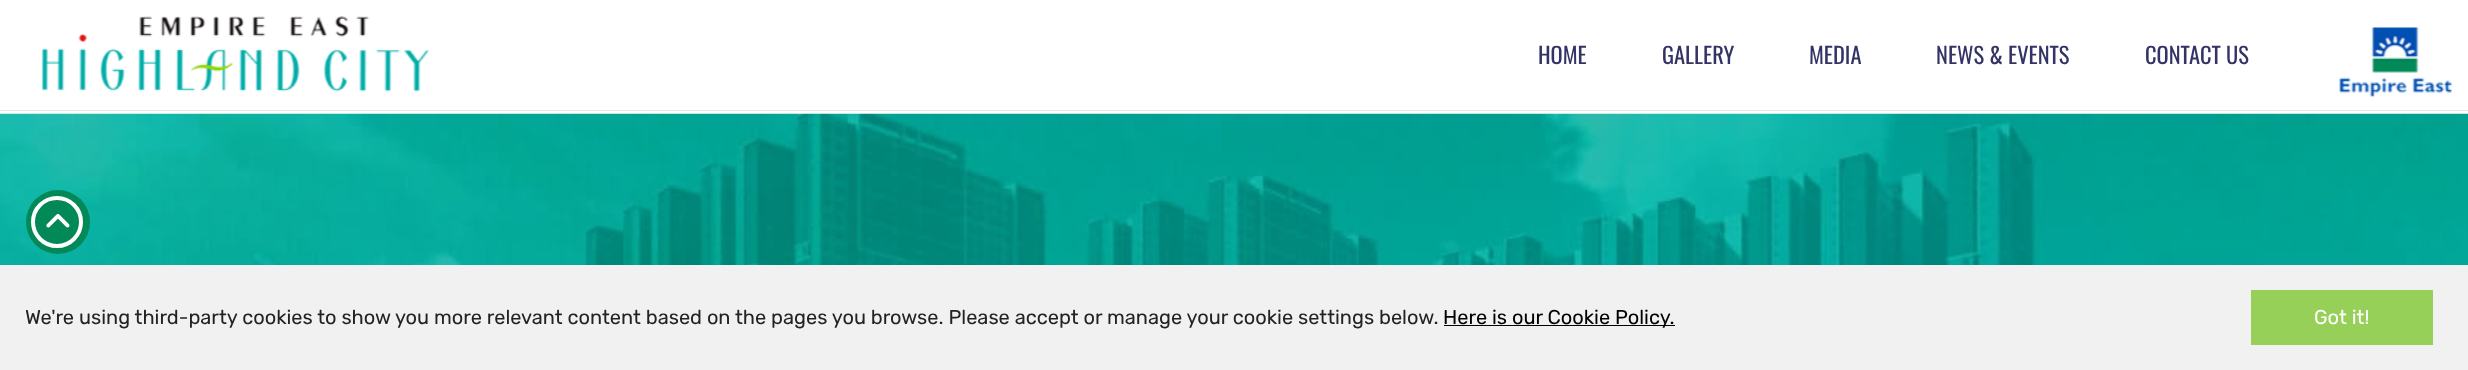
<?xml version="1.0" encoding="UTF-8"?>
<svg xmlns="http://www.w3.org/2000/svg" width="2468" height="370">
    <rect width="100%" height="100%" fill="#FFFFFF"/>
    <rect x="0" y="110" width="2468" height="1" fill="#E6E6E6"/>
    <image x="41" y="16" width="389" height="76" href="img_01.png"/>
    <text x="1538" y="64" font-family="Oswald" font-size="22.5" fill="#333366">HOME</text>
    <text x="1662" y="64" font-family="Oswald" font-size="22.5" fill="#333366">GALLERY</text>
    <text x="1809" y="64" font-family="Oswald" font-size="22.5" fill="#333366">MEDIA</text>
    <text x="1936" y="64" font-family="Oswald" font-size="22.5" fill="#333366">NEWS &amp; EVENTS</text>
    <text x="2145" y="64" font-family="Oswald" font-size="22.5" fill="#333366">CONTACT US</text>
    <image x="2339" y="27" width="113" height="70" href="img_02.png"/>
    <image x="0" y="113" width="2468" height="152" href="img_03.png"/>
    <circle cx="58" cy="222" r="32" fill="#038957"/>
    <image x="46" y="214" width="24" height="14" href="img_04.png"/>
    <circle cx="57" cy="222" r="24" fill="none" stroke="#FFFFFF" stroke-width="4"/>
    <rect x="0" y="265" width="2468" height="105" fill="#F1F1F1"/>
    <text x="25" y="324" font-family="Rubik" font-size="20" fill="#232323">We're using third-party cookies to show you more relevant content based on the pages you browse. Please accept or manage your cookie settings below.</text>
    <rect x="1444" y="325" width="231" height="1" fill="#000000"/>
    <text x="1443" y="324" font-family="Rubik" font-size="20" fill="#000000">Here is our Cookie Policy.</text>
    <rect x="2251" y="290" width="182" height="55" fill="#97D058"/>
    <text x="2314" y="324" font-family="Rubik" font-size="20" fill="#FFFFFF">Got it!</text>
</svg>
